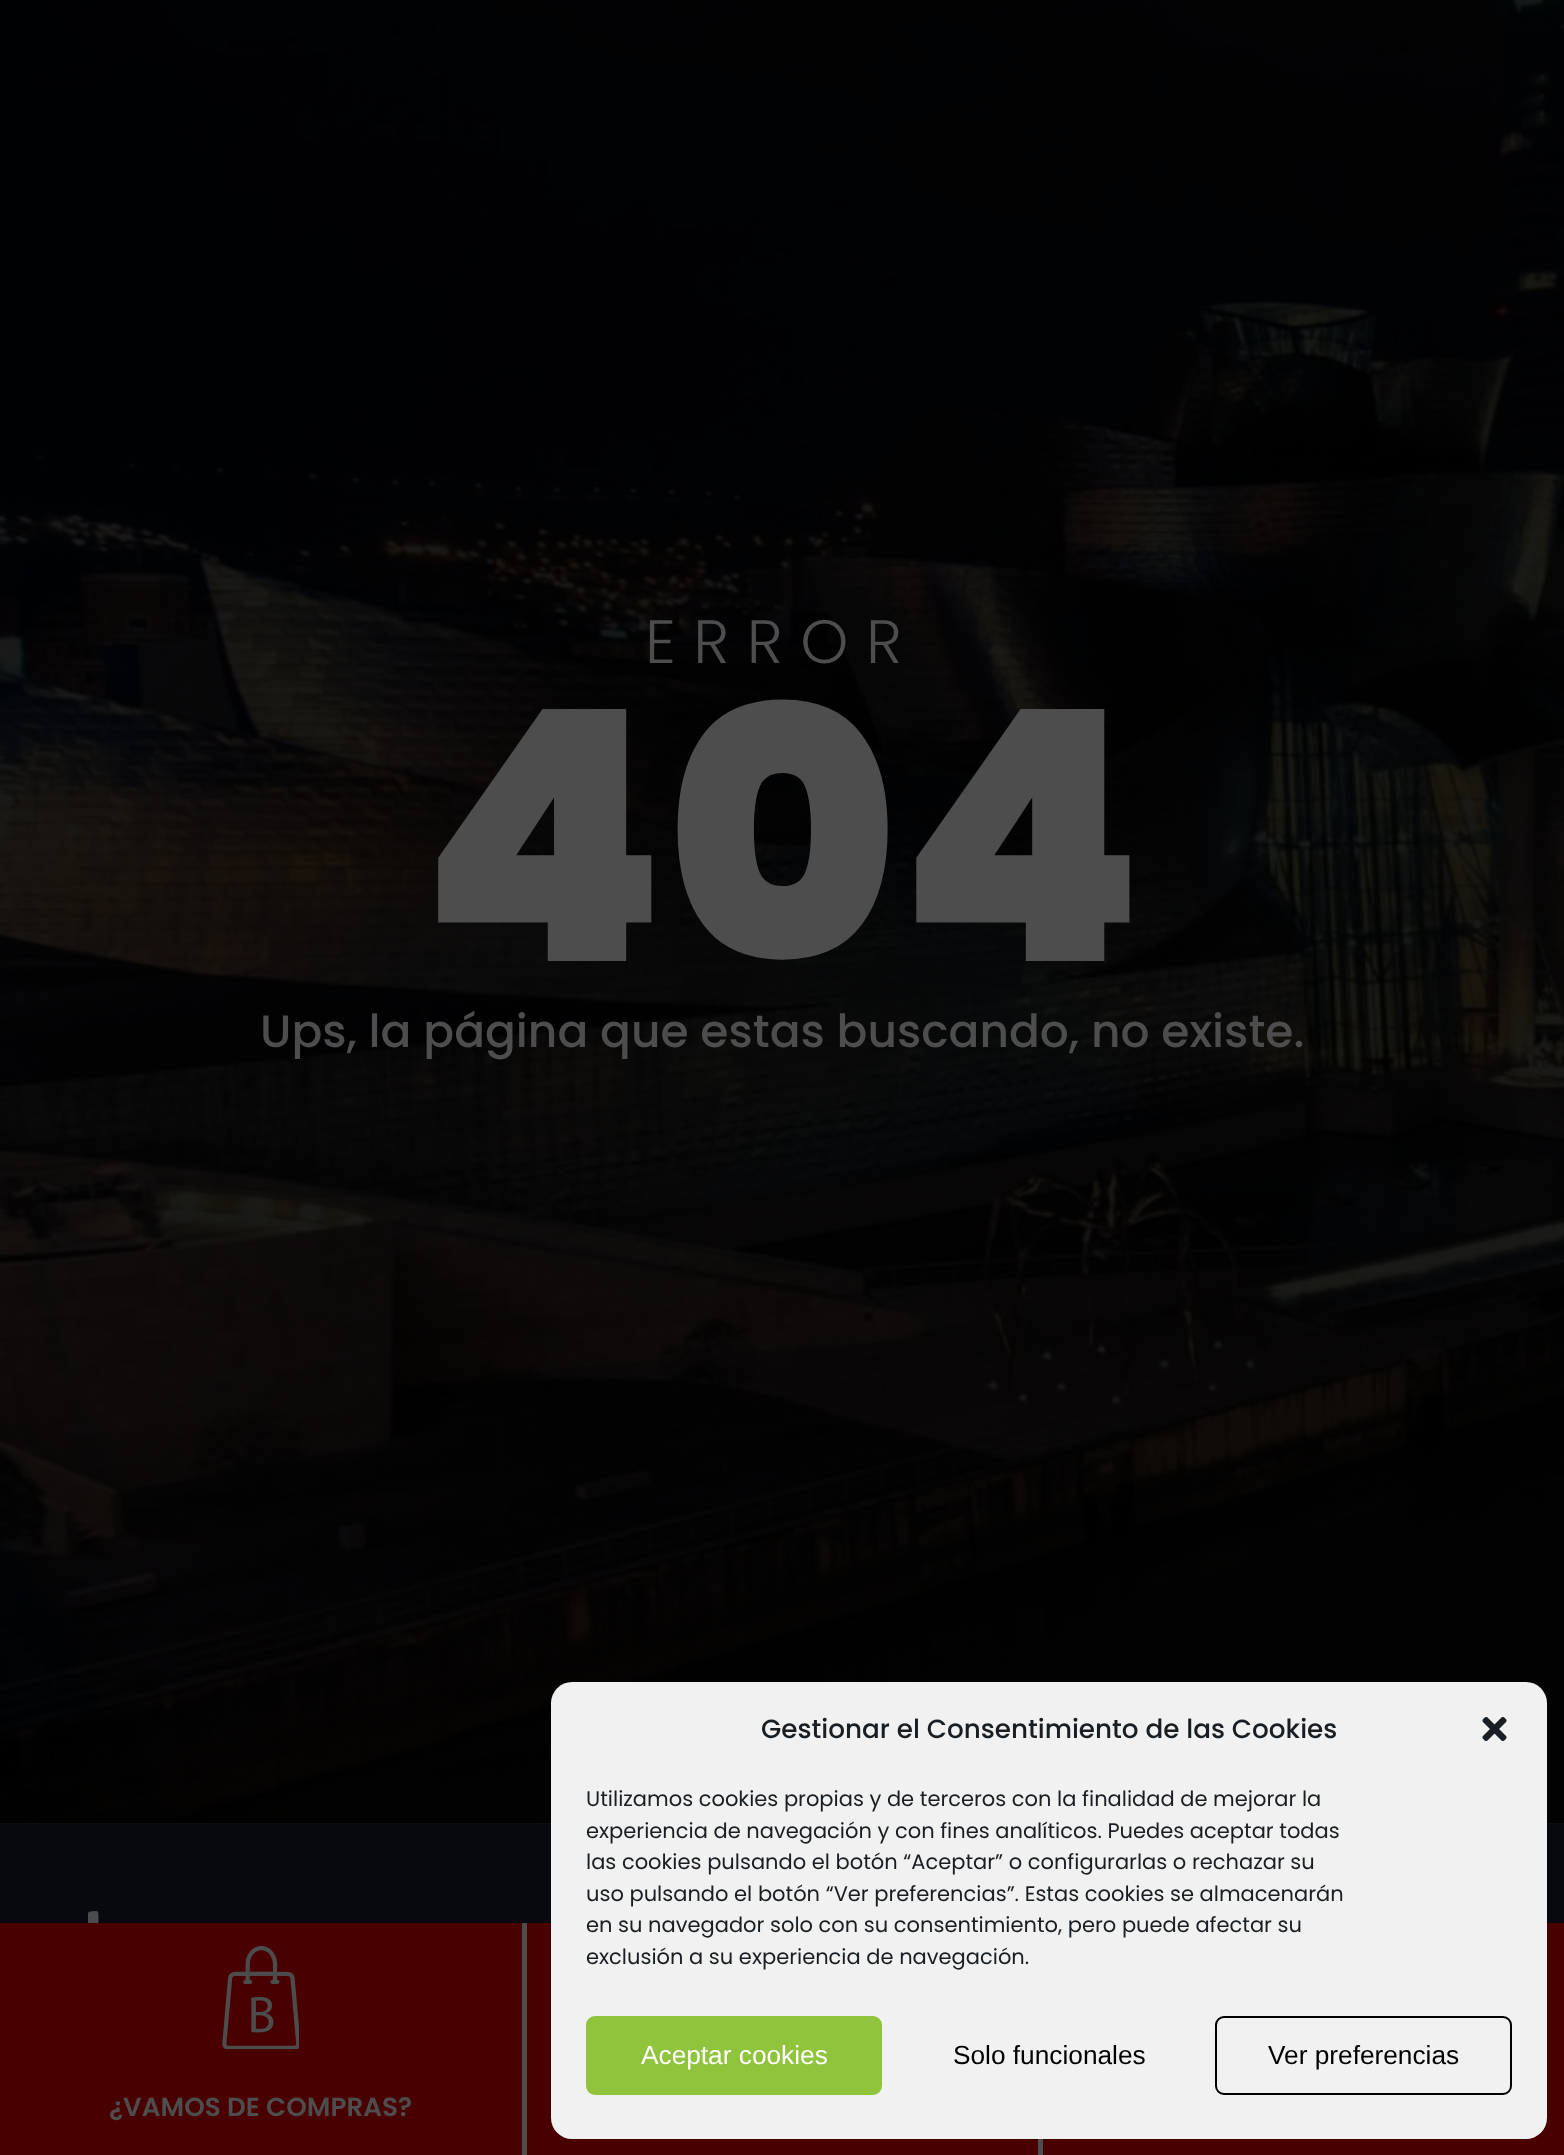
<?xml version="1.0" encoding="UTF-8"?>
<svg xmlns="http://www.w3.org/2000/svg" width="1564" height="2155">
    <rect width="100%" height="100%" fill="#191919"/>
    <image x="0" y="0" width="1564" height="1824" href="img_01.png"/>
    <text x="645" y="663" font-family="Poppins" font-size="61.25" font-weight="300" letter-spacing="17.5" fill="#4D4D4D">ERROR</text>
    <text x="420" y="961" font-family="Poppins" font-size="350" font-weight="900" fill="#4D4D4D">404</text>
    <text x="260" y="1047" font-family="Poppins" font-size="45.5" font-weight="500" fill="#4D4D4D">Ups, la página que estas buscando, no existe.</text>
    <rect x="0" y="1824" width="1564" height="99" fill="#07090E"/>
    <rect x="0" y="1923" width="1564" height="232" fill="#490001"/>
    <rect x="551" y="1682" width="996" height="457" rx="21" fill="#F1F1F1"/>
    <text x="761" y="1738" font-family="Poppins" font-size="26.25" font-weight="500" fill="#191E23">Gestionar el Consentimiento de las Cookies</text>
    <image x="1482" y="1717" width="25" height="24" href="img_02.png"/>
    <text font-family="Poppins" font-size="21" fill="#191E23">
        <tspan x="586" y="1806">Utilizamos cookies propias y de terceros con la finalidad de mejorar la</tspan>
        <tspan x="586" y="1838">experiencia de navegación y con fines analíticos. Puedes aceptar todas</tspan>
        <tspan x="586" y="1869">las cookies pulsando el botón “Aceptar” o configurarlas o rechazar su</tspan>
        <tspan x="586" y="1901">uso pulsando el botón “Ver preferencias”. Estas cookies se almacenarán</tspan>
        <tspan x="586" y="1932">en su navegador solo con su consentimiento, pero puede afectar su</tspan>
        <tspan x="586" y="1964">exclusión a su experiencia de navegación.</tspan>
    </text>
    <rect x="587" y="2017" width="294" height="77" rx="8" fill="#90C43C" stroke="#90C43C" stroke-width="2"/>
    <text x="641" y="2064" font-family="Liberation Sans" font-size="26.25" fill="#FFFFFF">Aceptar cookies</text>
    <text x="953" y="2064" font-family="Liberation Sans" font-size="26.25" fill="#000000">Solo funcionales</text>
    <rect x="1216" y="2017" width="295" height="77" rx="8" fill="none" stroke="#000000" stroke-width="2"/>
    <text x="1268" y="2064" font-family="Liberation Sans" font-size="26.25" fill="#000000">Ver preferencias</text>
    <image x="88" y="1911" width="11" height="12" href="img_03.png"/>
    <image x="222" y="1946" width="77" height="103" href="img_04.png"/>
    <text x="109" y="2116" font-family="Poppins" font-size="26.25" font-weight="600" fill="#4D4D4D">¿VAMOS DE COMPRAS?</text>
    <rect x="1038" y="2139" width="5" height="16" fill="#4D4D4D"/>
    <rect x="522" y="1923" width="5" height="232" fill="#4D4D4D"/>
</svg>
